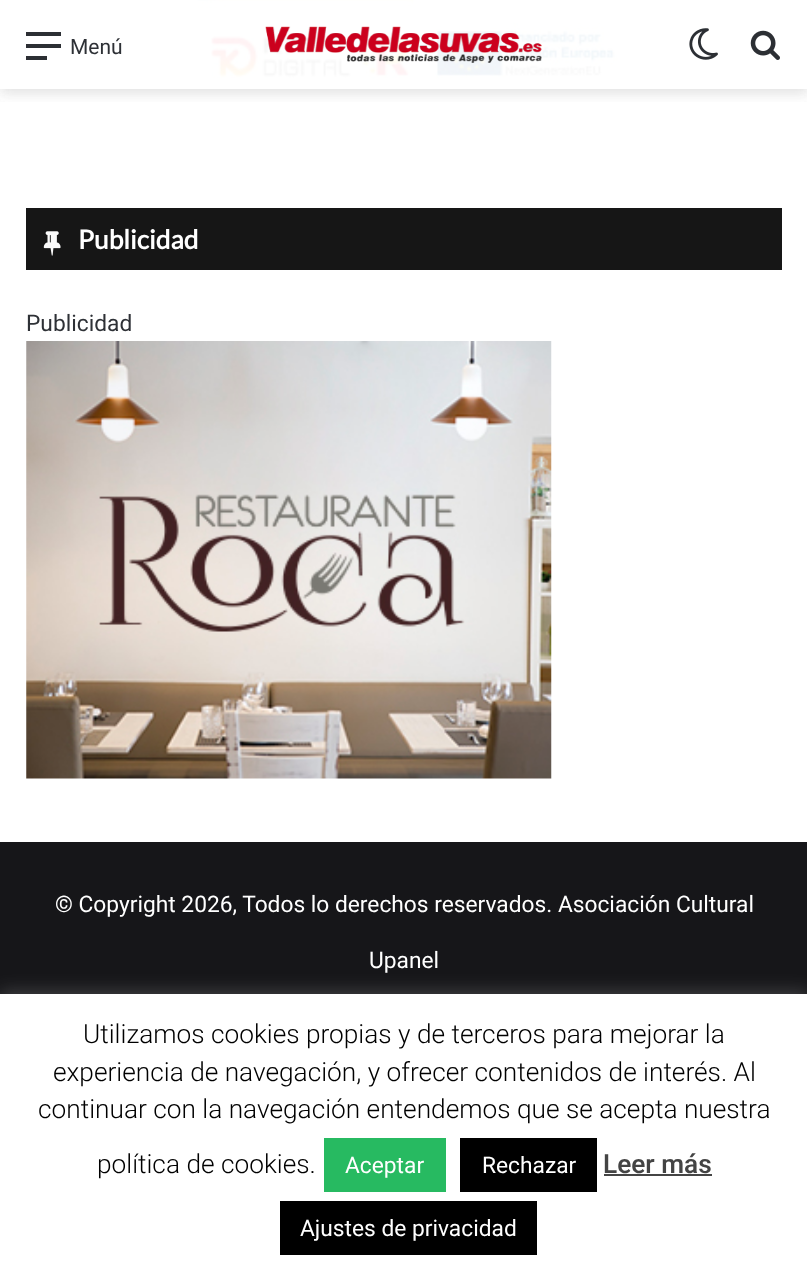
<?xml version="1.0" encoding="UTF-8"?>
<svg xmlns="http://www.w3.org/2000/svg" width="807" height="1275">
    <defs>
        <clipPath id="clip1"><rect x="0" y="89" width="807" height="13"/></clipPath>
        <filter id="blur1" x="-50%" y="-200%" width="200%" height="500%"><feGaussianBlur stdDeviation="7"/></filter>
        <filter id="blur2" x="-50%" y="-200%" width="200%" height="500%"><feGaussianBlur stdDeviation="9"/></filter>
    </defs>
    <rect width="100%" height="100%" fill="#FFFFFF"/>
    <image x="197" y="0" width="421" height="79" href="img_04.png"/>
    <g clip-path="url(#clip1)">
        <rect x="0" y="4" width="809" height="89" fill="#636363" fill-opacity="0.2" filter="url(#blur1)"/>
    </g>
    <rect x="26" y="44" width="35" height="4" fill="#2C2F34"/>
    <rect x="26" y="32" width="35" height="4" fill="#2C2F34"/>
    <rect x="26" y="56" width="21" height="4" fill="#2C2F34"/>
    <text x="70" y="54" font-family="Roboto" font-size="21" fill="#2E3136">Menú</text>
    <image x="265" y="26" width="277" height="37" href="img_01.png"/>
    <image x="689" y="28" width="29" height="32" href="img_02.png"/>
    <image x="750" y="30" width="30" height="30" href="img_03.png"/>
    <rect x="26" y="208" width="756" height="62" fill="#161616"/>
    <image x="43" y="231" width="18" height="25" href="img_05.png"/>
    <text x="78" y="249" font-family="Lato" font-size="26.25" font-weight="700" fill="#FFFFFF">Publicidad</text>
    <text x="26" y="331" font-family="Roboto" font-size="22.75" fill="#2E3136">Publicidad</text>
    <image x="26" y="341" width="526" height="438" href="img_06.png"/>
    <rect x="0" y="842" width="807" height="152" fill="#161619"/>
    <text x="55" y="912" font-family="Roboto" font-size="22.75" fill="#FFFFFF">© Copyright 2026, Todos lo derechos reservados. Asociación Cultural</text>
    <text x="369" y="968" font-family="Roboto" font-size="22.75" fill="#FFFFFF">Upanel</text>
    <rect x="0" y="992" width="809" height="282" fill="#ACABAB" fill-opacity="0.3" filter="url(#blur2)"/>
    <rect x="0" y="994" width="807" height="281" fill="#FFFFFF"/>
    <text x="83" y="1043" font-family="Roboto" font-size="26.25" font-weight="300" fill="#000000">Utilizamos cookies propias y de terceros para mejorar la</text>
    <text x="53" y="1081" font-family="Roboto" font-size="26.25" font-weight="300" fill="#000000">experiencia de navegación, y ofrecer contenidos de interés. Al</text>
    <text x="38" y="1118" font-family="Roboto" font-size="26.25" font-weight="300" fill="#000000">continuar con la navegación entendemos que se acepta nuestra</text>
    <text x="97" y="1173" font-family="Roboto" font-size="26.25" font-weight="300" fill="#000000">política de cookies.</text>
    <rect x="324" y="1138" width="122" height="54" fill="#27BA61"/>
    <text x="345" y="1173" font-family="Roboto" font-size="22.75" fill="#FFFFFF">Aceptar</text>
    <rect x="460" y="1138" width="137" height="54" fill="#000000"/>
    <text x="482" y="1173" font-family="Roboto" font-size="22.75" fill="#FFFFFF">Rechazar</text>
    <text x="603" y="1173" font-family="Roboto" font-size="26.25" font-weight="500" fill="#444444">Leer más</text>
    <rect x="604" y="1174" width="108" height="2" fill="#444444"/>
    <rect x="280" y="1201" width="257" height="54" fill="#000000"/>
    <text x="300" y="1236" font-family="Roboto" font-size="22.75" fill="#FFFFFF">Ajustes de privacidad</text>
</svg>
